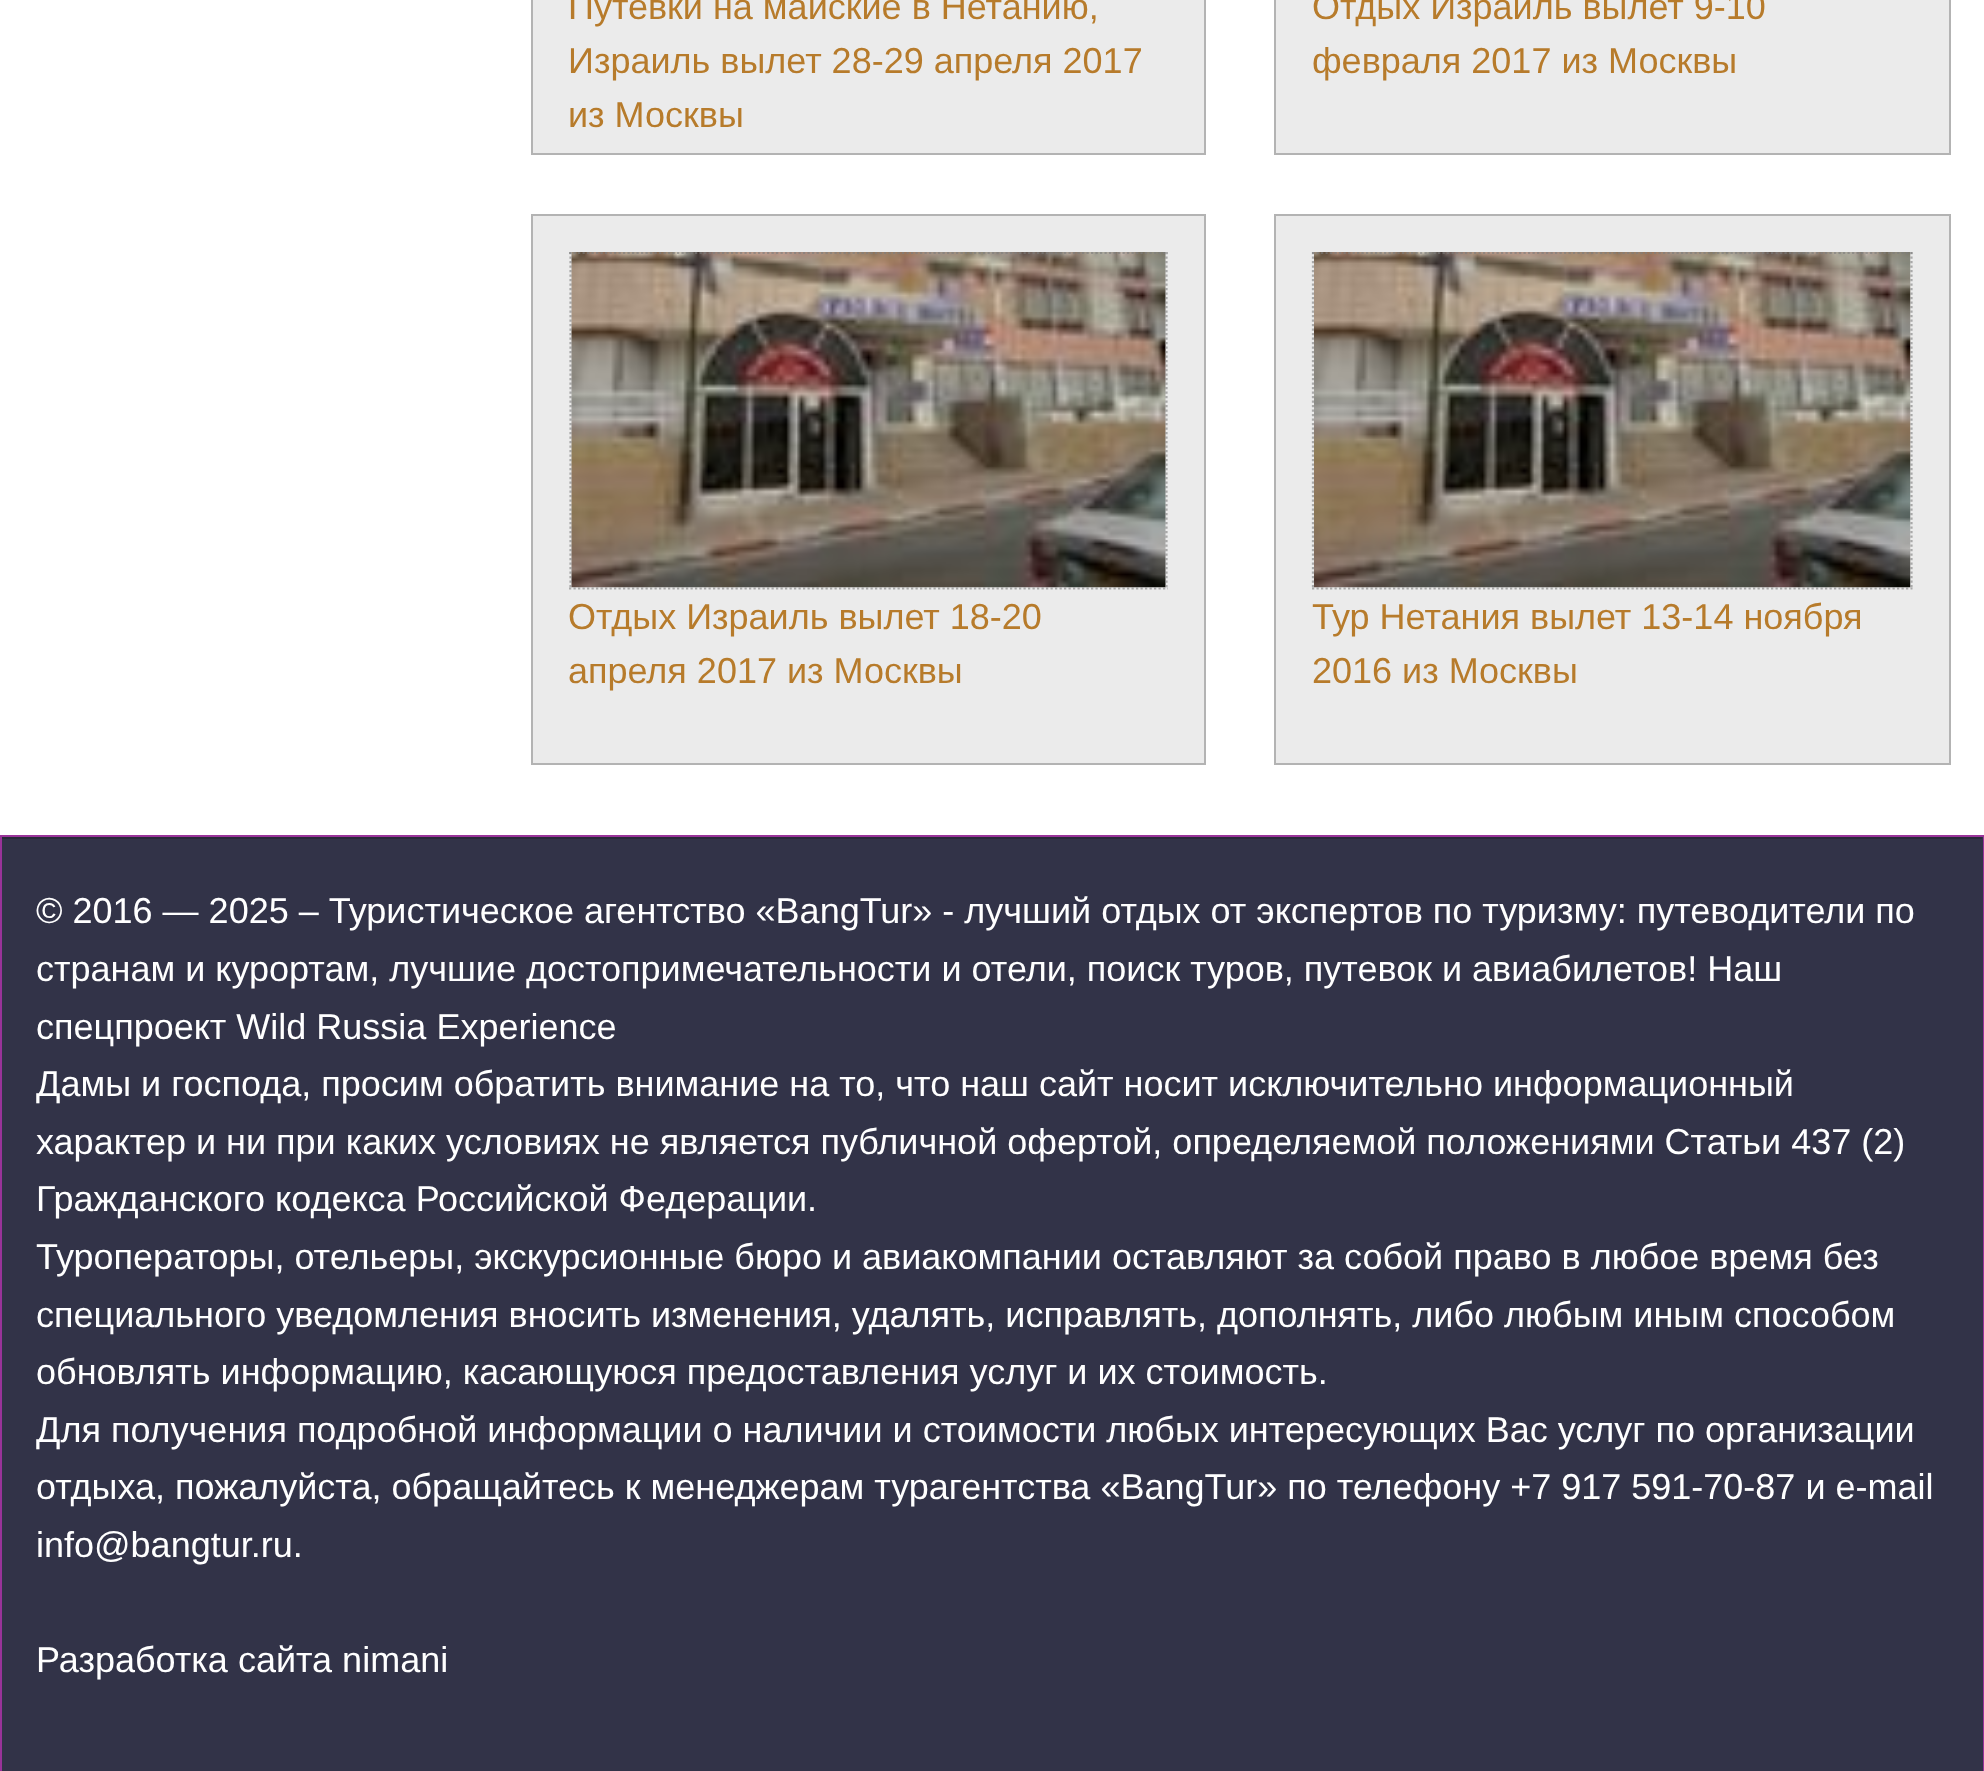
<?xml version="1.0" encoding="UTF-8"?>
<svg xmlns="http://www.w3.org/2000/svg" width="1984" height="1771">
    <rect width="100%" height="100%" fill="#FFFFFF"/>
    <rect x="532" y="-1" width="673" height="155" fill="#EBEBEB" stroke="#B3B3B3" stroke-width="2"/>
    <text font-family="Liberation Sans" font-size="36" fill="#B77B2B">
        <tspan x="568" y="19">Путевки на майские в Нетанию,</tspan>
        <tspan x="568" y="73">Израиль вылет 28-29 апреля 2017</tspan>
        <tspan x="568" y="127">из Москвы</tspan>
    </text>
    <rect x="1275" y="-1" width="675" height="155" fill="#EBEBEB" stroke="#B3B3B3" stroke-width="2"/>
    <text font-family="Liberation Sans" font-size="36" fill="#B77B2B">
        <tspan x="1312" y="19">Отдых Израиль вылет 9-10</tspan>
        <tspan x="1312" y="73">февраля 2017 из Москвы</tspan>
    </text>
    <rect x="532" y="215" width="673" height="549" fill="#EBEBEB" stroke="#B3B3B3" stroke-width="2"/>
    <image x="571" y="252" width="595" height="336" href="img_01.png"/>
    <path d="M 569 253 H 1168" fill="none" stroke="#7D7D7D" stroke-opacity="0.6" stroke-width="2.2" stroke-dasharray="2.25 2.25"/>
    <path d="M 1166.5 252 V 589.5" fill="none" stroke="#7D7D7D" stroke-opacity="0.6" stroke-width="2.2" stroke-dasharray="2.25 2.25"/>
    <path d="M 569 588.5 H 1168" fill="none" stroke="#7D7D7D" stroke-opacity="0.6" stroke-width="2.2" stroke-dasharray="2.25 2.25"/>
    <path d="M 570.5 252 V 589.5" fill="none" stroke="#7D7D7D" stroke-opacity="0.6" stroke-width="2.2" stroke-dasharray="2.25 2.25"/>
    <text font-family="Liberation Sans" font-size="36" fill="#B77B2B">
        <tspan x="568" y="629">Отдых Израиль вылет 18-20</tspan>
        <tspan x="568" y="683">апреля 2017 из Москвы</tspan>
    </text>
    <rect x="1275" y="215" width="675" height="549" fill="#EBEBEB" stroke="#B3B3B3" stroke-width="2"/>
    <image x="1314" y="252" width="597" height="336" href="img_02.png"/>
    <path d="M 1312 253 H 1912.5" fill="none" stroke="#7D7D7D" stroke-opacity="0.6" stroke-width="2.2" stroke-dasharray="2.25 2.25"/>
    <path d="M 1911.5 252 V 589.5" fill="none" stroke="#7D7D7D" stroke-opacity="0.6" stroke-width="2.2" stroke-dasharray="2.25 2.25"/>
    <path d="M 1312 588.5 H 1912.5" fill="none" stroke="#7D7D7D" stroke-opacity="0.6" stroke-width="2.2" stroke-dasharray="2.25 2.25"/>
    <path d="M 1313 252 V 589.5" fill="none" stroke="#7D7D7D" stroke-opacity="0.6" stroke-width="2.2" stroke-dasharray="2.25 2.25"/>
    <text font-family="Liberation Sans" font-size="36" fill="#B77B2B">
        <tspan x="1312" y="629">Тур Нетания вылет 13-14 ноября</tspan>
        <tspan x="1312" y="683">2016 из Москвы</tspan>
    </text>
    <rect x="2" y="837" width="1981" height="934" fill="#323348"/>
    <rect x="2" y="837" width="1980" height="2" fill="#28293A"/>
    <rect x="1" y="836" width="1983" height="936" fill="none" stroke="#993399" stroke-width="2"/>
    <text font-family="Liberation Sans" font-size="36" fill="#FFFFFF">
        <tspan x="36" y="923">© 2016 — 2025 – Туристическое агентство «BangTur» - лучший отдых от экспертов по туризму: путеводители по</tspan>
        <tspan x="36" y="981">странам и курортам, лучшие достопримечательности и отели, поиск туров, путевок и авиабилетов! Наш</tspan>
        <tspan x="36" y="1039">спецпроект Wild Russia Experience</tspan>
        <tspan x="36" y="1096">Дамы и господа, просим обратить внимание на то, что наш сайт носит исключительно информационный</tspan>
        <tspan x="36" y="1154">характер и ни при каких условиях не является публичной офертой, определяемой положениями Статьи 437 (2)</tspan>
        <tspan x="36" y="1211">Гражданского кодекса Российской Федерации.</tspan>
        <tspan x="36" y="1269">Туроператоры, отельеры, экскурсионные бюро и авиакомпании оставляют за собой право в любое время без</tspan>
        <tspan x="36" y="1327">специального уведомления вносить изменения, удалять, исправлять, дополнять, либо любым иным способом</tspan>
        <tspan x="36" y="1384">обновлять информацию, касающуюся предоставления услуг и их стоимость.</tspan>
        <tspan x="36" y="1442">Для получения подробной информации о наличии и стоимости любых интересующих Вас услуг по организации</tspan>
        <tspan x="36" y="1499">отдыха, пожалуйста, обращайтесь к менеджерам турагентства «BangTur» по телефону +7 917 591-70-87 и e-mail</tspan>
        <tspan x="36" y="1557">info@bangtur.ru.</tspan>
    </text>
    <text x="36" y="1672" font-family="Liberation Sans" font-size="36" fill="#FFFFFF">Разработка сайта nimani</text>
</svg>
